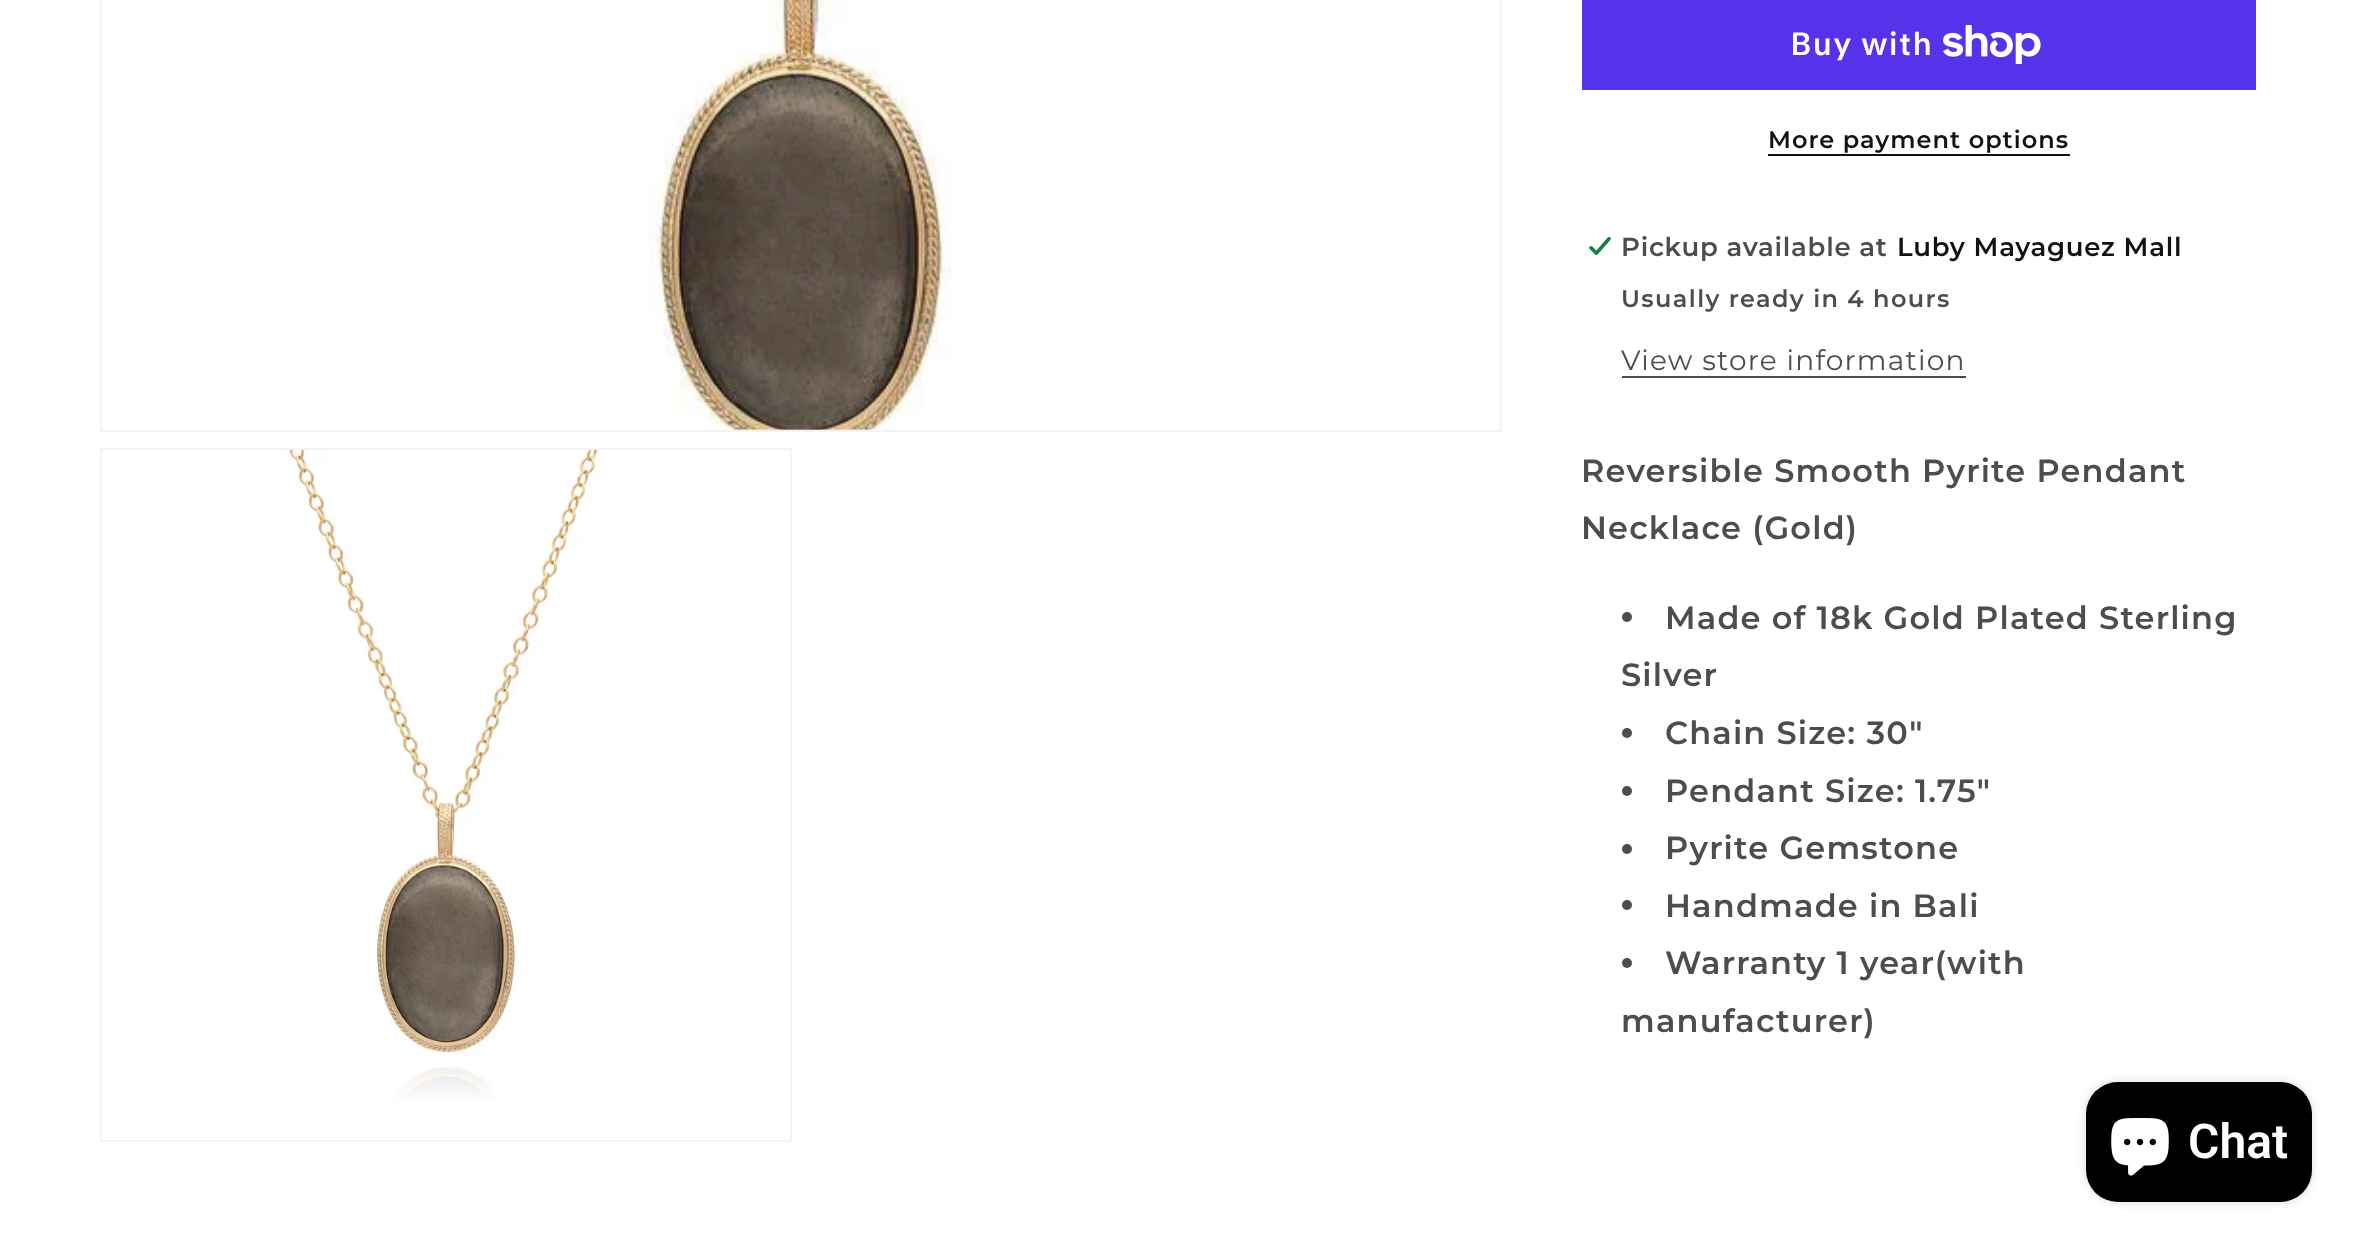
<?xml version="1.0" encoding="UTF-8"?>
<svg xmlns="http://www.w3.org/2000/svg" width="2355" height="1243">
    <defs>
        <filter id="blur1" x="-50%" y="-200%" width="200%" height="500%"><feGaussianBlur stdDeviation="5"/></filter>
    </defs>
    <rect width="100%" height="100%" fill="#FFFFFF"/>
    <rect x="101" y="-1" width="1400" height="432" fill="none" stroke="#F3F3F3" stroke-width="2"/>
    <image x="648" y="0" width="305" height="430" href="img_01.png"/>
    <rect x="101" y="449" width="690" height="692" fill="none" stroke="#F3F3F3" stroke-width="2"/>
    <image x="286" y="450" width="312" height="650" href="img_02.png"/>
    <rect x="1582" y="0" width="674" height="90" fill="#5433EB"/>
    <text x="1790" y="55" font-family="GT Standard" font-size="32" font-weight="600" letter-spacing="1.2" fill="#FFFFFF">Buy with</text>
    <image x="1943" y="25" width="98" height="39" href="img_03.png"/>
    <text x="1768" y="148" font-family="Montserrat" font-size="24" font-weight="600" letter-spacing="1" fill="#121212">More payment options</text>
    <rect x="1768" y="154" width="302" height="2" fill="#121212"/>
    <image x="1589" y="237" width="22" height="18" href="img_04.png"/>
    <text x="1621" y="256" font-family="Montserrat" font-size="26" font-weight="600" letter-spacing="0.75" fill="#4D4D4D">Pickup available at</text>
    <text x="1897" y="256" font-family="Montserrat" font-size="26" font-weight="600" letter-spacing="0.75" fill="#121212">Luby Mayaguez Mall</text>
    <text x="1621" y="307" font-family="Montserrat" font-size="24" font-weight="600" letter-spacing="1.4" fill="#4D4D4D">Usually ready in 4 hours</text>
    <text x="1621" y="370" font-family="Montserrat" font-size="28" letter-spacing="1.2" fill="#4D4D4D">View store information</text>
    <rect x="1622" y="376" width="344" height="2" fill="#4D4D4D"/>
    <text font-family="Montserrat" font-size="32" font-weight="600" letter-spacing="1.2" fill="#4D4D4D">
        <tspan x="1581" y="482">Reversible Smooth Pyrite Pendant</tspan>
        <tspan x="1581" y="539">Necklace (Gold)</tspan>
    </text>
    <circle cx="1627" cy="617" r="5" fill="#4D4D4D"/>
    <text x="1665" y="629" font-family="Montserrat" font-size="32" font-weight="600" letter-spacing="1.2" fill="#4D4D4D">Made of 18k Gold Plated Sterling</text>
    <text x="1621" y="686" font-family="Montserrat" font-size="32" font-weight="600" letter-spacing="1.2" fill="#4D4D4D">Silver</text>
    <circle cx="1627" cy="733" r="5" fill="#4D4D4D"/>
    <text x="1665" y="744" font-family="Montserrat" font-size="32" font-weight="600" letter-spacing="1.2" fill="#4D4D4D">Chain Size: 30"</text>
    <circle cx="1627" cy="791" r="5" fill="#4D4D4D"/>
    <text x="1665" y="802" font-family="Montserrat" font-size="32" font-weight="600" letter-spacing="1.2" fill="#4D4D4D">Pendant Size: 1.75"</text>
    <circle cx="1627" cy="849" r="5" fill="#4D4D4D"/>
    <text x="1665" y="859" font-family="Montserrat" font-size="32" font-weight="600" letter-spacing="1.2" fill="#4D4D4D">Pyrite Gemstone</text>
    <circle cx="1627" cy="905" r="5" fill="#4D4D4D"/>
    <text x="1665" y="917" font-family="Montserrat" font-size="32" font-weight="600" letter-spacing="1.2" fill="#4D4D4D">Handmade in Bali</text>
    <circle cx="1627" cy="963" r="5" fill="#4D4D4D"/>
    <text x="1665" y="974" font-family="Montserrat" font-size="32" font-weight="600" letter-spacing="1.2" fill="#4D4D4D">Warranty 1 year(with</text>
    <text x="1621" y="1032" font-family="Montserrat" font-size="32" font-weight="600" letter-spacing="1.2" fill="#4D4D4D">manufacturer)</text>
    <rect x="2086" y="1082" width="226" height="120" rx="32" fill="#000000" fill-opacity="0.15" filter="url(#blur1)"/>
    <rect x="2086" y="1082" width="226" height="120" rx="32" fill="#000000"/>
    <image x="2111" y="1118" width="58" height="58" href="img_05.png"/>
    <text x="2188" y="1158" font-family="Roboto" font-size="48" font-weight="600" fill="#FFFFFF">Chat</text>
</svg>
